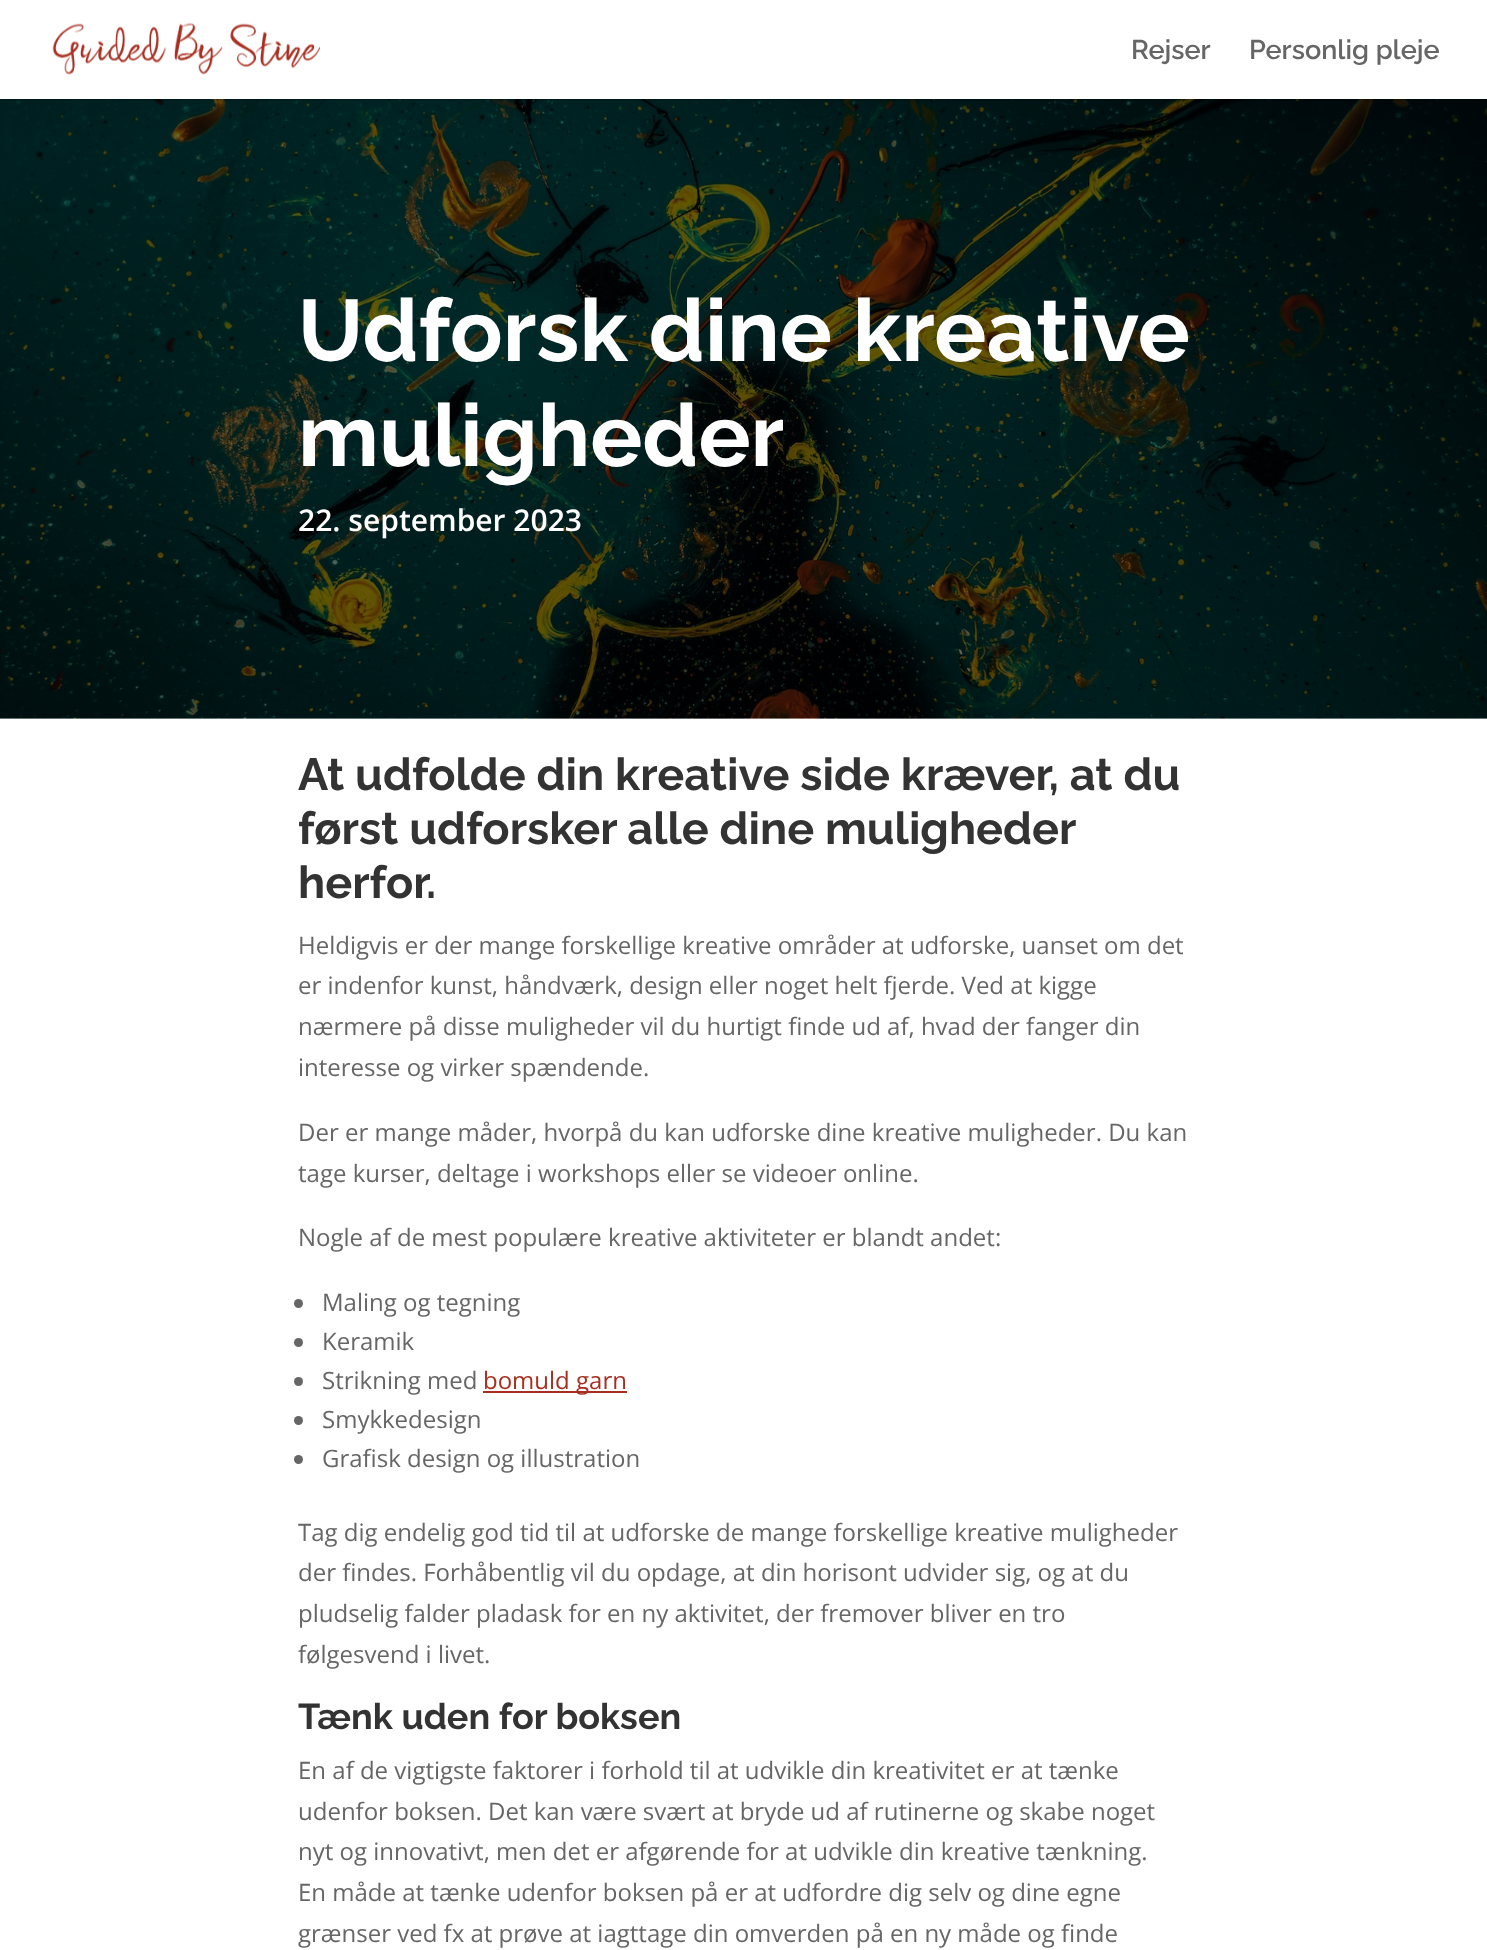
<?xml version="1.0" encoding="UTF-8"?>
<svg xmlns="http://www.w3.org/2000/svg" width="1487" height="1950">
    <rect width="100%" height="100%" fill="#FFFFFF"/>
    <image x="0" y="99" width="1487" height="620" href="img_02.png"/>
    <rect x="0" y="99" width="1403" height="2" fill="#000000" fill-opacity="0.1"/>
    <image x="52" y="23" width="269" height="52" href="img_01.png"/>
    <text x="1131" y="59" font-family="'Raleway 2'" font-size="27" font-weight="100" fill="#666666">Rejser</text>
    <text x="1249" y="59" font-family="'Raleway 2'" font-size="27" font-weight="100" fill="#666666">Personlig pleje</text>
    <text font-family="Raleway" font-size="87" font-weight="100" fill="#FFFFFF">
        <tspan x="298" y="361">Udforsk dine kreative</tspan>
        <tspan x="298" y="466">muligheder</tspan>
    </text>
    <text x="298" y="531" font-family="Open Sans" font-size="30" font-weight="600" fill="#FFFFFF">22. september 2023</text>
    <text font-family="Raleway" font-size="45" font-weight="100" fill="#333333">
        <tspan x="298" y="790">At udfolde din kreative side kræver, at du</tspan>
        <tspan x="298" y="844">først udforsker alle dine muligheder</tspan>
        <tspan x="298" y="898">herfor.</tspan>
    </text>
    <text font-family="Open Sans" font-size="24" fill="#666666">
        <tspan x="298" y="954">Heldigvis er der mange forskellige kreative områder at udforske, uanset om det</tspan>
        <tspan x="298" y="994">er indenfor kunst, håndværk, design eller noget helt fjerde. Ved at kigge</tspan>
        <tspan x="298" y="1035">nærmere på disse muligheder vil du hurtigt finde ud af, hvad der fanger din</tspan>
        <tspan x="298" y="1076">interesse og virker spændende.</tspan>
    </text>
    <text font-family="Open Sans" font-size="24" fill="#666666">
        <tspan x="298" y="1141">Der er mange måder, hvorpå du kan udforske dine kreative muligheder. Du kan</tspan>
        <tspan x="298" y="1182">tage kurser, deltage i workshops eller se videoer online.</tspan>
    </text>
    <text x="298" y="1246" font-family="Open Sans" font-size="24" fill="#666666">Nogle af de mest populære kreative aktiviteter er blandt andet:</text>
    <circle cx="298.5" cy="1303.5" r="4.5" fill="#666666"/>
    <text x="322" y="1311" font-family="Open Sans" font-size="24" fill="#666666">Maling og tegning</text>
    <circle cx="298.5" cy="1342.5" r="4.5" fill="#666666"/>
    <text x="322" y="1350" font-family="Open Sans" font-size="24" fill="#666666">Keramik</text>
    <circle cx="298.5" cy="1381.5" r="4.5" fill="#666666"/>
    <text x="322" y="1389" font-family="Open Sans" font-size="24" fill="#666666">Strikning med</text>
    <rect x="483" y="1391" width="144" height="2" fill="#A82F20"/>
    <text x="483" y="1389" font-family="Open Sans" font-size="24" fill="#A82F20">bomuld garn</text>
    <circle cx="298.5" cy="1420.5" r="4.5" fill="#666666"/>
    <text x="322" y="1428" font-family="Open Sans" font-size="24" fill="#666666">Smykkedesign</text>
    <circle cx="298.5" cy="1459.5" r="4.5" fill="#666666"/>
    <text x="322" y="1467" font-family="Open Sans" font-size="24" fill="#666666">Grafisk design og illustration</text>
    <text font-family="Open Sans" font-size="24" fill="#666666">
        <tspan x="298" y="1541">Tag dig endelig god tid til at udforske de mange forskellige kreative muligheder</tspan>
        <tspan x="298" y="1581">der findes. Forhåbentlig vil du opdage, at din horisont udvider sig, og at du</tspan>
        <tspan x="298" y="1622">pludselig falder pladask for en ny aktivitet, der fremover bliver en tro</tspan>
        <tspan x="298" y="1663">følgesvend i livet.</tspan>
    </text>
    <text x="298" y="1729" font-family="Raleway" font-size="36" font-weight="100" fill="#333333">Tænk uden for boksen</text>
    <text font-family="Open Sans" font-size="24" fill="#666666">
        <tspan x="298" y="1779">En af de vigtigste faktorer i forhold til at udvikle din kreativitet er at tænke</tspan>
        <tspan x="298" y="1820">udenfor boksen. Det kan være svært at bryde ud af rutinerne og skabe noget</tspan>
        <tspan x="298" y="1860">nyt og innovativt, men det er afgørende for at udvikle din kreative tænkning.</tspan>
        <tspan x="298" y="1901">En måde at tænke udenfor boksen på er at udfordre dig selv og dine egne</tspan>
        <tspan x="298" y="1942">grænser ved fx at prøve at iagttage din omverden på en ny måde og finde</tspan>
    </text>
</svg>
